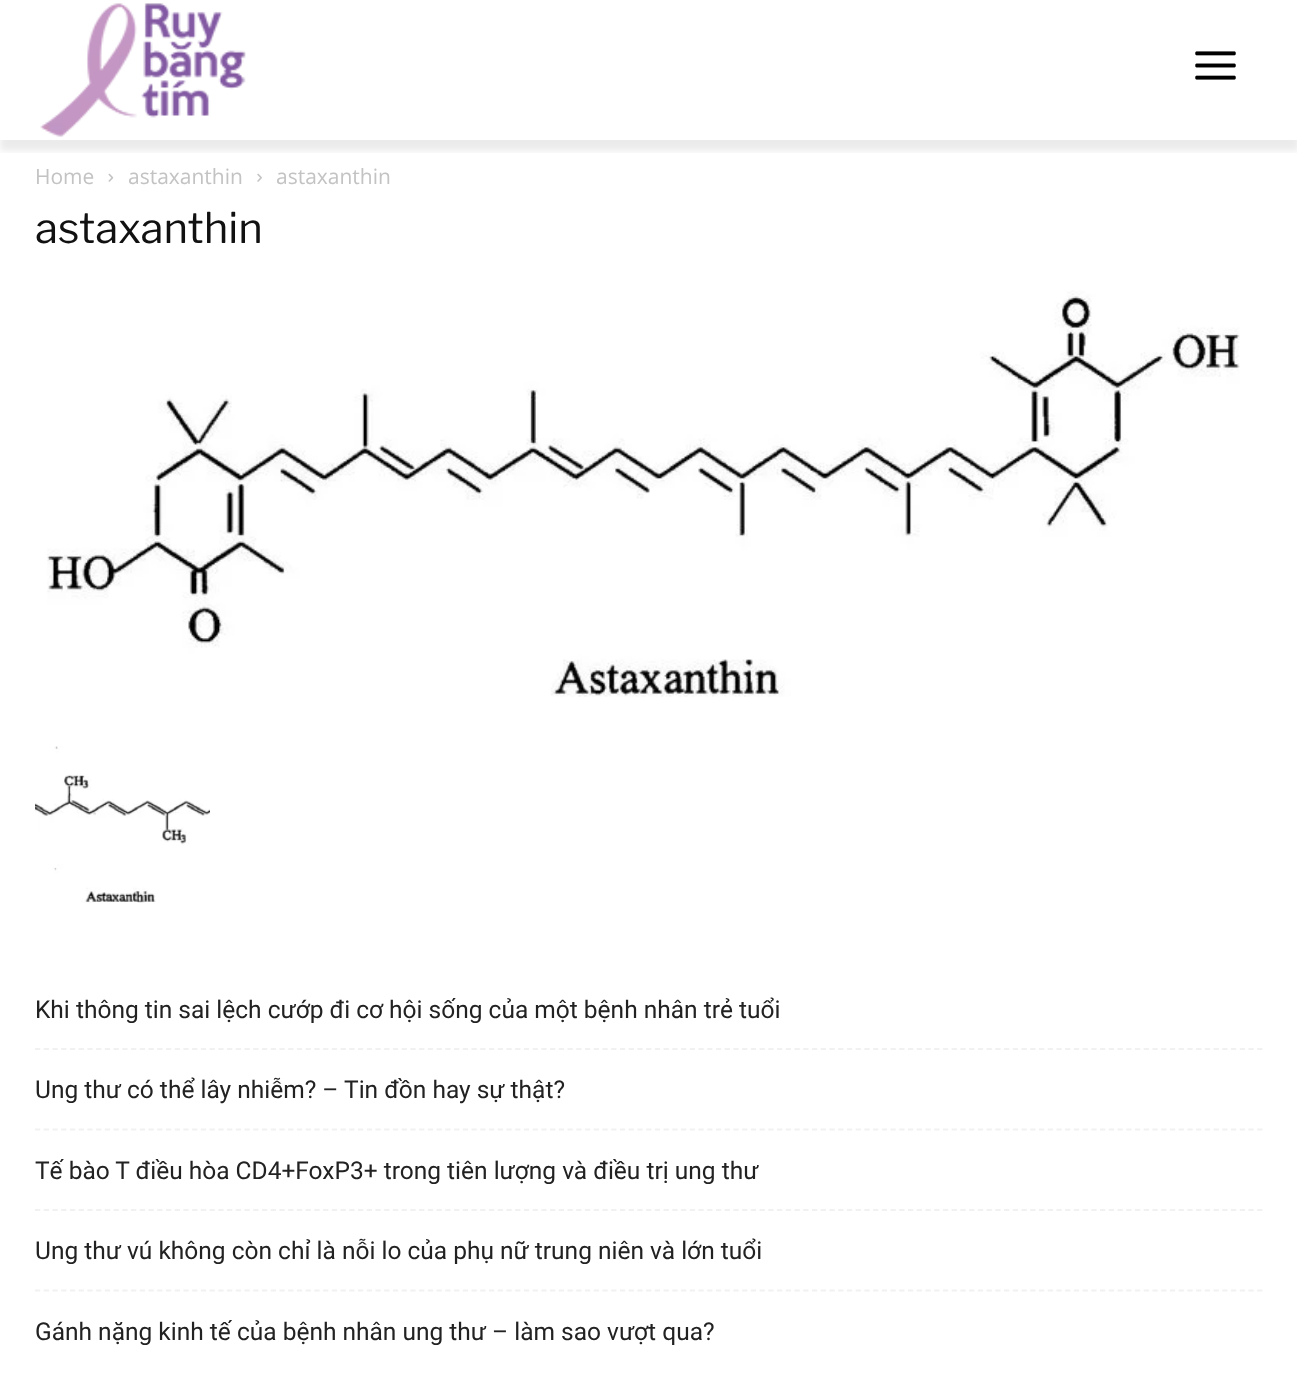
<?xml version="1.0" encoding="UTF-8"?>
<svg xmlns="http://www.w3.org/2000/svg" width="1297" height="1373">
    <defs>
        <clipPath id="clip1"><rect x="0" y="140" width="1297" height="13"/></clipPath>
        <filter id="blur1" x="-50%" y="-200%" width="200%" height="500%"><feGaussianBlur stdDeviation="3.5"/></filter>
    </defs>
    <rect width="100%" height="100%" fill="#FFFFFF"/>
    <image x="40" y="3" width="206" height="134" href="img_01.png"/>
    <image x="1195" y="51" width="41" height="29" href="img_02.png"/>
    <g clip-path="url(#clip1)">
        <rect x="0" y="11" width="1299" height="140" fill="#000000" fill-opacity="0.08" filter="url(#blur1)"/>
    </g>
    <text x="35" y="184" font-family="Open Sans" font-size="21" fill="#C3C3C3">Home</text>
    <image x="108" y="173" width="6" height="9" href="img_03.png"/>
    <text x="128" y="184" font-family="Open Sans" font-size="21" fill="#C3C3C3">astaxanthin</text>
    <image x="257" y="173" width="5" height="9" href="img_04.png"/>
    <text x="276" y="184" font-family="Open Sans" font-size="21" fill="#C3C3C3">astaxanthin</text>
    <text x="35" y="243" font-family="Libre Franklin" font-size="42" font-weight="100" fill="#111111">astaxanthin</text>
    <image x="47" y="290" width="1193" height="407" href="img_05.png"/>
    <image x="35" y="746" width="175" height="157" href="img_06.png"/>
    <path d="M 35 1049 H 1263.5" fill="none" stroke="#F1F1F1" stroke-width="1.8" stroke-dasharray="5.25 3.48"/>
    <text x="35" y="1018" font-family="Roboto" font-size="24.5" fill="#222222">Khi thông tin sai lệch cướp đi cơ hội sống của một bệnh nhân trẻ tuổi</text>
    <path d="M 35 1129.5 H 1263.5" fill="none" stroke="#F1F1F1" stroke-width="1.8" stroke-dasharray="5.25 3.48"/>
    <text x="35" y="1098" font-family="Roboto" font-size="24.5" fill="#222222">Ung thư có thể lây nhiễm? – Tin đồn hay sự thật?</text>
    <path d="M 35 1210 H 1263.5" fill="none" stroke="#F1F1F1" stroke-width="1.8" stroke-dasharray="5.25 3.48"/>
    <text x="35" y="1179" font-family="Roboto" font-size="24.5" fill="#222222">Tế bào T điều hòa CD4+FoxP3+ trong tiên lượng và điều trị ung thư</text>
    <path d="M 35 1290.5 H 1263.5" fill="none" stroke="#F1F1F1" stroke-width="1.8" stroke-dasharray="5.25 3.48"/>
    <text x="35" y="1259" font-family="Roboto" font-size="24.5" fill="#222222">Ung thư vú không còn chỉ là nỗi lo của phụ nữ trung niên và lớn tuổi</text>
    <text x="35" y="1340" font-family="Roboto" font-size="24.5" fill="#222222">Gánh nặng kinh tế của bệnh nhân ung thư – làm sao vượt qua?</text>
</svg>
